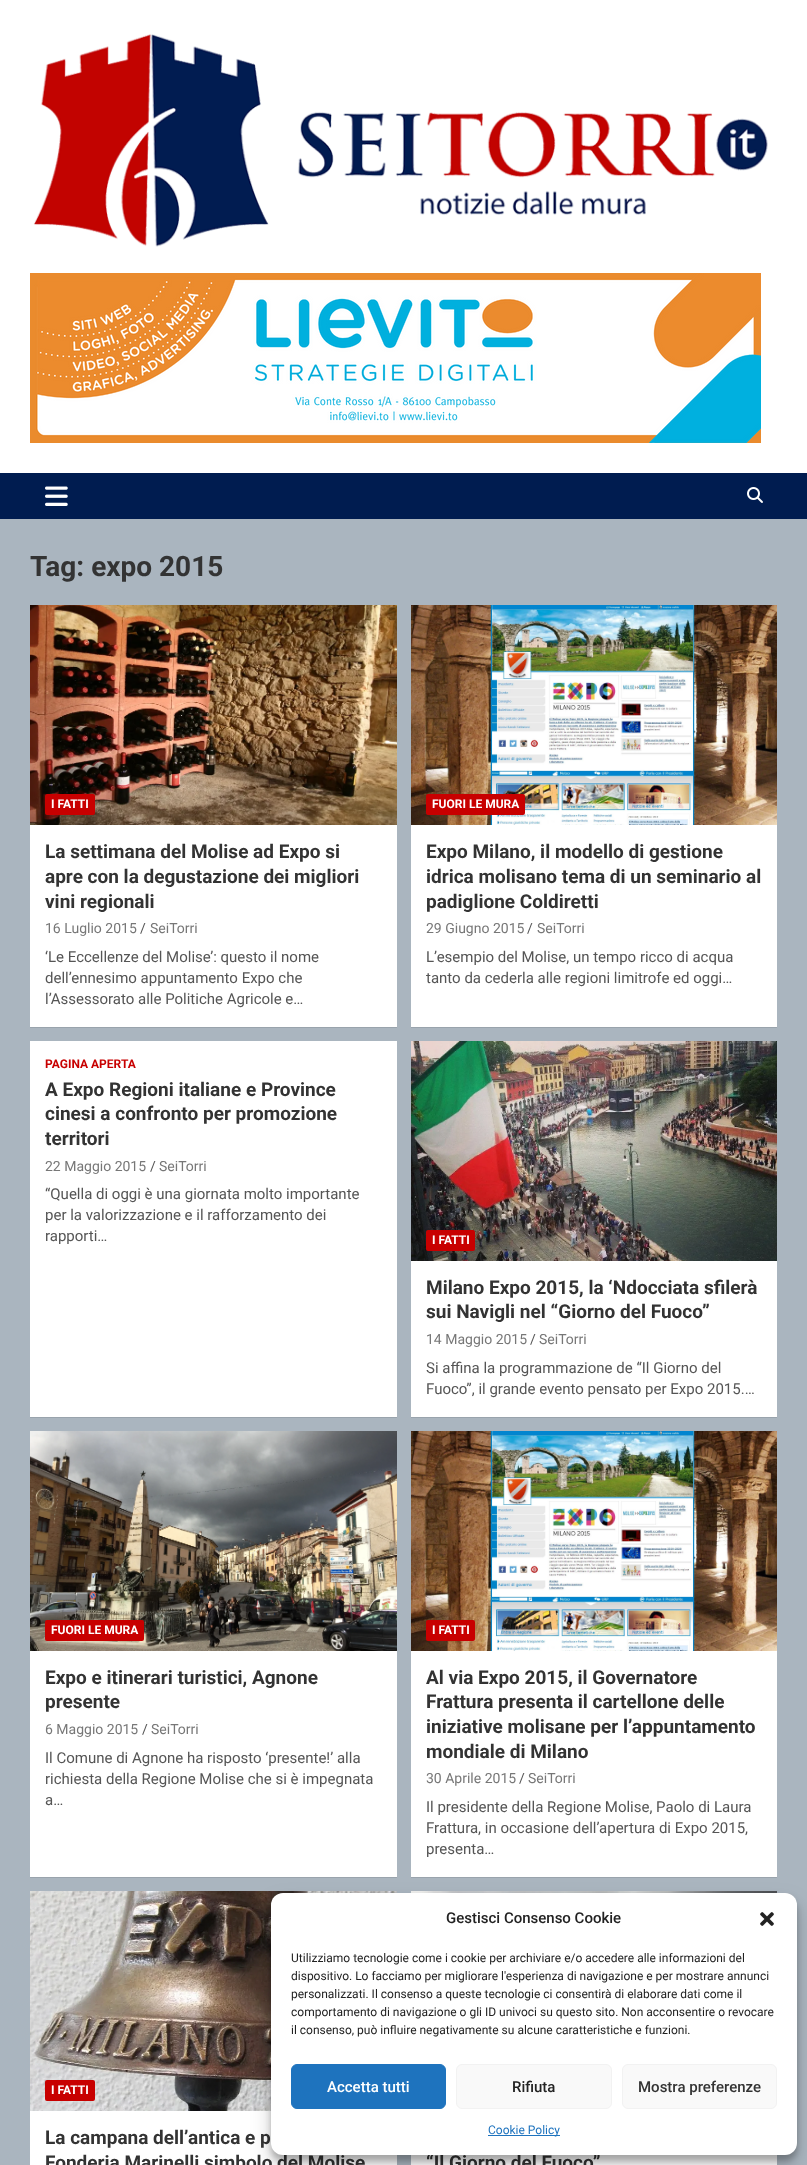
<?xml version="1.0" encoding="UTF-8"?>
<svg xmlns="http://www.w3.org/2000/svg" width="807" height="2165">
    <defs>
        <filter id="blur1" x="-50%" y="-200%" width="200%" height="500%"><feGaussianBlur stdDeviation="0.5"/></filter>
        <filter id="blur2" x="-50%" y="-200%" width="200%" height="500%"><feGaussianBlur stdDeviation="3"/></filter>
        <filter id="blur3" x="-50%" y="-200%" width="200%" height="500%"><feGaussianBlur stdDeviation="10"/></filter>
    </defs>
    <rect width="100%" height="100%" fill="#AAB5BF"/>
    <rect x="0" y="0" width="807" height="473" fill="#FFFFFF"/>
    <image x="33" y="34" width="735" height="213" href="img_01.png"/>
    <image x="30" y="273" width="731" height="170" href="img_02.png"/>
    <rect x="0" y="473" width="807" height="46" fill="#001C50"/>
    <image x="45" y="486" width="23" height="20" href="img_03.png"/>
    <image x="747" y="487" width="16" height="16" href="img_04.png"/>
    <text x="30" y="576" font-family="Roboto" font-size="28" font-weight="700" fill="#333333">Tag: expo 2015</text>
    <rect x="30" y="606" width="367" height="422" fill="#000000" fill-opacity="0.1" filter="url(#blur1)"/>
    <rect x="30" y="825" width="367" height="202" fill="#FFFFFF"/>
    <image x="30" y="605" width="367" height="220" href="img_05.png"/>
    <rect x="45" y="794" width="50" height="21" rx="2" fill="#C80000"/>
    <text x="51" y="808" font-family="Roboto" font-size="12" font-weight="700" fill="#FFFFFF">I FATTI</text>
    <text font-family="Roboto" font-size="19" font-weight="700" fill="#333333">
        <tspan x="45" y="858">La settimana del Molise ad Expo si</tspan>
        <tspan x="45" y="883">apre con la degustazione dei migliori</tspan>
        <tspan x="45" y="908">vini regionali</tspan>
    </text>
    <text x="45" y="933" font-family="Roboto" font-size="14" fill="#777777">16 Luglio 2015</text>
    <text x="140" y="933" font-family="Roboto" font-size="14" fill="#555555">/</text>
    <text x="150" y="933" font-family="Roboto" font-size="14" fill="#777777">SeiTorri</text>
    <text font-family="Roboto" font-size="15" fill="#555555">
        <tspan x="45" y="962">‘Le Eccellenze del Molise’: questo il nome</tspan>
        <tspan x="45" y="983">dell’ennesimo appuntamento Expo che</tspan>
        <tspan x="45" y="1004">l’Assessorato alle Politiche Agricole e…</tspan>
    </text>
    <rect x="411" y="606" width="366" height="422" fill="#000000" fill-opacity="0.1" filter="url(#blur1)"/>
    <rect x="411" y="825" width="366" height="202" fill="#FFFFFF"/>
    <image x="411" y="605" width="366" height="220" href="img_06.png"/>
    <rect x="426" y="794" width="99" height="21" rx="2" fill="#C80000"/>
    <text x="432" y="808" font-family="Roboto" font-size="12" font-weight="700" fill="#FFFFFF">FUORI LE MURA</text>
    <text font-family="Roboto" font-size="19" font-weight="700" fill="#333333">
        <tspan x="426" y="858">Expo Milano, il modello di gestione</tspan>
        <tspan x="426" y="883">idrica molisano tema di un seminario al</tspan>
        <tspan x="426" y="908">padiglione Coldiretti</tspan>
    </text>
    <text x="426" y="933" font-family="Roboto" font-size="14" fill="#777777">29 Giugno 2015</text>
    <text x="527" y="933" font-family="Roboto" font-size="14" fill="#555555">/</text>
    <text x="537" y="933" font-family="Roboto" font-size="14" fill="#777777">SeiTorri</text>
    <text font-family="Roboto" font-size="15" fill="#555555">
        <tspan x="426" y="962">L’esempio del Molise, un tempo ricco di acqua</tspan>
        <tspan x="426" y="983">tanto da cederla alle regioni limitrofe ed oggi…</tspan>
    </text>
    <rect x="30" y="1042" width="367" height="376" fill="#000000" fill-opacity="0.1" filter="url(#blur1)"/>
    <rect x="30" y="1041" width="367" height="376" fill="#FFFFFF"/>
    <text x="45" y="1068" font-family="Roboto" font-size="12" font-weight="700" fill="#C80000">PAGINA APERTA</text>
    <text font-family="Roboto" font-size="19" font-weight="700" fill="#333333">
        <tspan x="45" y="1096">A Expo Regioni italiane e Province</tspan>
        <tspan x="45" y="1120">cinesi a confronto per promozione</tspan>
        <tspan x="45" y="1145">territori</tspan>
    </text>
    <text x="45" y="1171" font-family="Roboto" font-size="14" fill="#777777">22 Maggio 2015</text>
    <text x="150" y="1171" font-family="Roboto" font-size="14" fill="#555555">/</text>
    <text x="159" y="1171" font-family="Roboto" font-size="14" fill="#777777">SeiTorri</text>
    <text font-family="Roboto" font-size="15" fill="#555555">
        <tspan x="45" y="1199">“Quella di oggi è una giornata molto importante</tspan>
        <tspan x="45" y="1220">per la valorizzazione e il rafforzamento dei</tspan>
        <tspan x="45" y="1241">rapporti…</tspan>
    </text>
    <rect x="411" y="1042" width="366" height="376" fill="#000000" fill-opacity="0.1" filter="url(#blur1)"/>
    <rect x="411" y="1261" width="366" height="156" fill="#FFFFFF"/>
    <image x="411" y="1041" width="366" height="220" href="img_07.png"/>
    <rect x="426" y="1230" width="49" height="21" rx="2" fill="#C80000"/>
    <text x="432" y="1244" font-family="Roboto" font-size="12" font-weight="700" fill="#FFFFFF">I FATTI</text>
    <text font-family="Roboto" font-size="19" font-weight="700" fill="#333333">
        <tspan x="426" y="1294">Milano Expo 2015, la ‘Ndocciata sfilerà</tspan>
        <tspan x="426" y="1318">sui Navigli nel “Giorno del Fuoco”</tspan>
    </text>
    <text x="426" y="1344" font-family="Roboto" font-size="14" fill="#777777">14 Maggio 2015</text>
    <text x="530" y="1344" font-family="Roboto" font-size="14" fill="#555555">/</text>
    <text x="539" y="1344" font-family="Roboto" font-size="14" fill="#777777">SeiTorri</text>
    <text font-family="Roboto" font-size="15" fill="#555555">
        <tspan x="426" y="1373">Si affina la programmazione de “Il Giorno del</tspan>
        <tspan x="426" y="1394">Fuoco”, il grande evento pensato per Expo 2015.…</tspan>
    </text>
    <rect x="30" y="1432" width="367" height="446" fill="#000000" fill-opacity="0.1" filter="url(#blur1)"/>
    <rect x="30" y="1651" width="367" height="226" fill="#FFFFFF"/>
    <image x="30" y="1431" width="367" height="220" href="img_08.png"/>
    <rect x="45" y="1620" width="99" height="21" rx="2" fill="#C80000"/>
    <text x="51" y="1634" font-family="Roboto" font-size="12" font-weight="700" fill="#FFFFFF">FUORI LE MURA</text>
    <text font-family="Roboto" font-size="19" font-weight="700" fill="#333333">
        <tspan x="45" y="1684">Expo e itinerari turistici, Agnone</tspan>
        <tspan x="45" y="1708">presente</tspan>
    </text>
    <text x="45" y="1734" font-family="Roboto" font-size="14" fill="#777777">6 Maggio 2015</text>
    <text x="142" y="1734" font-family="Roboto" font-size="14" fill="#555555">/</text>
    <text x="151" y="1734" font-family="Roboto" font-size="14" fill="#777777">SeiTorri</text>
    <text font-family="Roboto" font-size="15" fill="#555555">
        <tspan x="45" y="1763">Il Comune di Agnone ha risposto ‘presente!’ alla</tspan>
        <tspan x="45" y="1784">richiesta della Regione Molise che si è impegnata</tspan>
        <tspan x="45" y="1805">a…</tspan>
    </text>
    <rect x="411" y="1432" width="366" height="446" fill="#000000" fill-opacity="0.1" filter="url(#blur1)"/>
    <rect x="411" y="1651" width="366" height="226" fill="#FFFFFF"/>
    <image x="411" y="1431" width="366" height="220" href="img_06.png"/>
    <rect x="426" y="1620" width="49" height="21" rx="2" fill="#C80000"/>
    <text x="432" y="1634" font-family="Roboto" font-size="12" font-weight="700" fill="#FFFFFF">I FATTI</text>
    <text font-family="Roboto" font-size="19" font-weight="700" fill="#333333">
        <tspan x="426" y="1684">Al via Expo 2015, il Governatore</tspan>
        <tspan x="426" y="1708">Frattura presenta il cartellone delle</tspan>
        <tspan x="426" y="1733">iniziative molisane per l’appuntamento</tspan>
        <tspan x="426" y="1758">mondiale di Milano</tspan>
    </text>
    <text x="426" y="1783" font-family="Roboto" font-size="14" fill="#777777">30 Aprile 2015</text>
    <text x="519" y="1783" font-family="Roboto" font-size="14" fill="#555555">/</text>
    <text x="528" y="1783" font-family="Roboto" font-size="14" fill="#777777">SeiTorri</text>
    <text font-family="Roboto" font-size="15" fill="#555555">
        <tspan x="426" y="1812">Il presidente della Regione Molise, Paolo di Laura</tspan>
        <tspan x="426" y="1833">Frattura, in occasione dell’apertura di Expo 2015,</tspan>
        <tspan x="426" y="1854">presenta…</tspan>
    </text>
    <rect x="30" y="2111" width="367" height="54" fill="#FFFFFF"/>
    <image x="30" y="1891" width="367" height="220" href="img_09.png"/>
    <rect x="45" y="2080" width="50" height="21" rx="2" fill="#C80000"/>
    <text x="51" y="2094" font-family="Roboto" font-size="12" font-weight="700" fill="#FFFFFF">I FATTI</text>
    <text font-family="Roboto" font-size="19" font-weight="700" fill="#333333">
        <tspan x="45" y="2144">La campana dell’antica e p</tspan>
        <tspan x="45" y="2169">Fonderia Marinelli simbolo del Molise</tspan>
    </text>
    <rect x="411" y="2155" width="366" height="10" fill="#FFFFFF"/>
    <image x="411" y="1891" width="366" height="2" href="img_10.png"/>
    <text x="426" y="2169" font-family="Roboto" font-size="19" font-weight="700" fill="#333333">“Il Giorno del Fuoco”</text>
    <rect x="271" y="1899" width="526" height="262" rx="12" fill="#000000" fill-opacity="0.23" filter="url(#blur2)"/>
    <rect x="271" y="1903" width="526" height="262" rx="12" fill="#000000" fill-opacity="0.19" filter="url(#blur3)"/>
    <rect x="271" y="1893" width="526" height="262" rx="12" fill="#FFFFFF"/>
    <text x="446" y="1923" font-family="Roboto" font-size="15" font-weight="500" fill="#222222">Gestisci Consenso Cookie</text>
    <image x="760" y="1912" width="14" height="14" href="img_11.png"/>
    <text font-family="Roboto" font-size="12" fill="#222222">
        <tspan x="291" y="1962">Utilizziamo tecnologie come i cookie per archiviare e/o accedere alle informazioni del</tspan>
        <tspan x="291" y="1980">dispositivo. Lo facciamo per migliorare l'esperienza di navigazione e per mostrare annunci</tspan>
        <tspan x="291" y="1998">personalizzati. Il consenso a queste tecnologie ci consentirà di elaborare dati come il</tspan>
        <tspan x="291" y="2016">comportamento di navigazione o gli ID univoci su questo sito. Non acconsentire o revocare</tspan>
        <tspan x="291" y="2034">il consenso, può influire negativamente su alcune caratteristiche e funzioni.</tspan>
    </text>
    <rect x="291.5" y="2064.5" width="154" height="44" rx="5.5" fill="#1E73BE" stroke="#1E73BE"/>
    <text x="327" y="2092" font-family="Roboto" font-size="15" font-weight="500" fill="#FFFFFF">Accetta tutti</text>
    <rect x="456.5" y="2064.5" width="155" height="44" rx="5.5" fill="#F9F9F9" stroke="#F2F2F2"/>
    <text x="512" y="2092" font-family="Roboto" font-size="15" font-weight="500" fill="#222222">Rifiuta</text>
    <rect x="622.5" y="2064.5" width="154" height="44" rx="5.5" fill="#F9F9F9" stroke="#F2F2F2"/>
    <text x="638" y="2092" font-family="Roboto" font-size="15" font-weight="500" fill="#333333">Mostra preferenze</text>
    <rect x="488" y="2135" width="72" height="1" fill="#1E73BE"/>
    <text x="488" y="2134" font-family="Roboto" font-size="12" fill="#1E73BE">Cookie Policy</text>
</svg>
